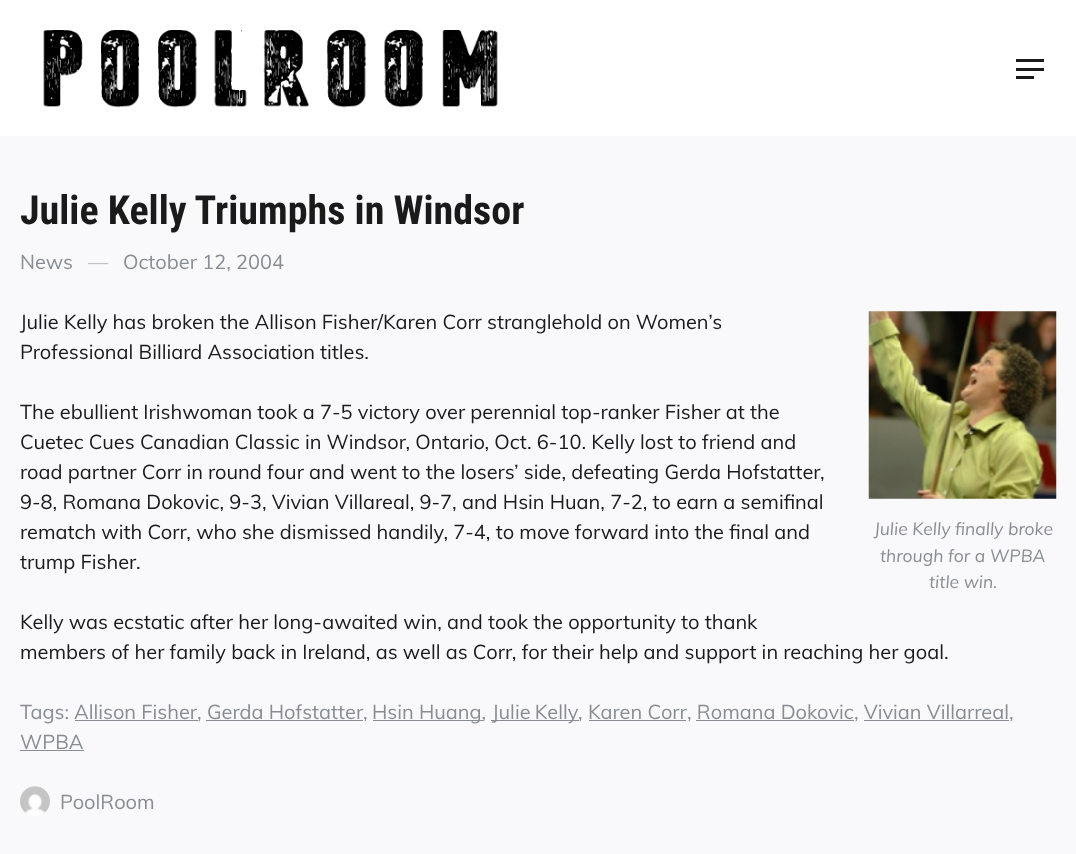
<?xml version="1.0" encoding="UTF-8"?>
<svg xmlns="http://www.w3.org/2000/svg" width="1076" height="854">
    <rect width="100%" height="100%" fill="#F9F9FB"/>
    <rect x="0" y="0" width="1076" height="136" fill="#FFFFFF"/>
    <image x="43" y="30" width="455" height="78" href="img_01.png"/>
    <rect x="1016" y="59" width="28" height="3" fill="#1A1A1B"/>
    <rect x="1016" y="68" width="28" height="3" fill="#1A1A1B"/>
    <rect x="1016" y="76" width="18" height="3" fill="#1A1A1B"/>
    <text x="20" y="224" font-family="Roboto Condensed" font-size="40" font-weight="700" fill="#1A1A1B">Julie Kelly Triumphs in Windsor</text>
    <text x="20" y="269" font-family="Muli" font-size="20" fill="#898D93">News</text>
    <text x="88" y="269" font-family="Muli" font-size="20" fill="#BDBDBF">—</text>
    <text x="123" y="269" font-family="Muli" font-size="20" fill="#898D93">October 12, 2004</text>
    <text font-family="Muli" font-size="20" fill="#1A1A1B">
        <tspan x="20" y="329">Julie Kelly has broken the Allison Fisher/Karen Corr stranglehold on Women’s</tspan>
        <tspan x="20" y="359">Professional Billiard Association titles.</tspan>
    </text>
    <text font-family="Muli" font-size="20" fill="#1A1A1B">
        <tspan x="20" y="419">The ebullient Irishwoman took a 7-5 victory over perennial top-ranker Fisher at the</tspan>
        <tspan x="20" y="449">Cuetec Cues Canadian Classic in Windsor, Ontario, Oct. 6-10. Kelly lost to friend and</tspan>
        <tspan x="20" y="479">road partner Corr in round four and went to the losers’ side, defeating Gerda Hofstatter,</tspan>
        <tspan x="20" y="509">9-8, Romana Dokovic, 9-3, Vivian Villareal, 9-7, and Hsin Huan, 7-2, to earn a semifinal</tspan>
        <tspan x="20" y="539">rematch with Corr, who she dismissed handily, 7-4, to move forward into the final and</tspan>
        <tspan x="20" y="569">trump Fisher.</tspan>
    </text>
    <image x="868" y="311" width="189" height="188" href="img_02.png"/>
    <text x="874" y="535" font-family="Muli" font-size="17.5" font-style="italic" fill="#898D93">Julie Kelly finally broke</text>
    <text x="880" y="562" font-family="Muli" font-size="17.5" font-style="italic" fill="#898D93">through for a WPBA</text>
    <text x="929" y="588" font-family="Muli" font-size="17.5" font-style="italic" fill="#898D93">title win.</text>
    <text font-family="Muli" font-size="20" fill="#1A1A1B">
        <tspan x="20" y="629">Kelly was ecstatic after her long-awaited win, and took the opportunity to thank</tspan>
        <tspan x="20" y="659">members of her family back in Ireland, as well as Corr, for their help and support in reaching her goal.</tspan>
    </text>
    <text x="20" y="719" font-family="Muli" font-size="20" fill="#898D93">Tags:</text>
    <text x="74" y="719" font-family="Muli" font-size="20" fill="#898D93">Allison Fisher</text>
    <rect x="75" y="720" width="123" height="1" fill="#898D93"/>
    <text x="197" y="719" font-family="Muli" font-size="20" fill="#898D93">,</text>
    <text x="207" y="719" font-family="Muli" font-size="20" fill="#898D93">Gerda Hofstatter</text>
    <rect x="206" y="720" width="157" height="1" fill="#898D93"/>
    <text x="363" y="719" font-family="Muli" font-size="20" fill="#898D93">,</text>
    <rect x="373" y="720" width="110" height="1" fill="#898D93"/>
    <text x="372" y="719" font-family="Muli" font-size="20" fill="#898D93">Hsin Huang,</text>
    <rect x="491" y="720" width="88" height="1" fill="#898D93"/>
    <text x="492" y="719" word-spacing="-1" font-family="Muli" font-size="20" fill="#898D93">Julie Kelly</text>
    <text x="578" y="719" font-family="Muli" font-size="20" fill="#898D93">,</text>
    <text x="588" y="719" font-family="Muli" font-size="20" fill="#898D93">Karen Corr</text>
    <rect x="589" y="720" width="97" height="1" fill="#898D93"/>
    <text x="687" y="719" font-family="Muli" font-size="20" fill="#898D93">, Romana Dokovic, Vivian Villarreal,</text>
    <rect x="696" y="720" width="158" height="1" fill="#898D93"/>
    <rect x="864" y="720" width="145" height="1" fill="#898D93"/>
    <text x="20" y="749" font-family="Muli" font-size="20" fill="#898D93">WPBA</text>
    <rect x="20" y="750" width="64" height="1" fill="#898D93"/>
    <image x="20" y="786" width="30" height="30" href="img_03.png"/>
    <text x="60" y="809" font-family="Muli" font-size="20" fill="#898D93">PoolRoom</text>
</svg>
